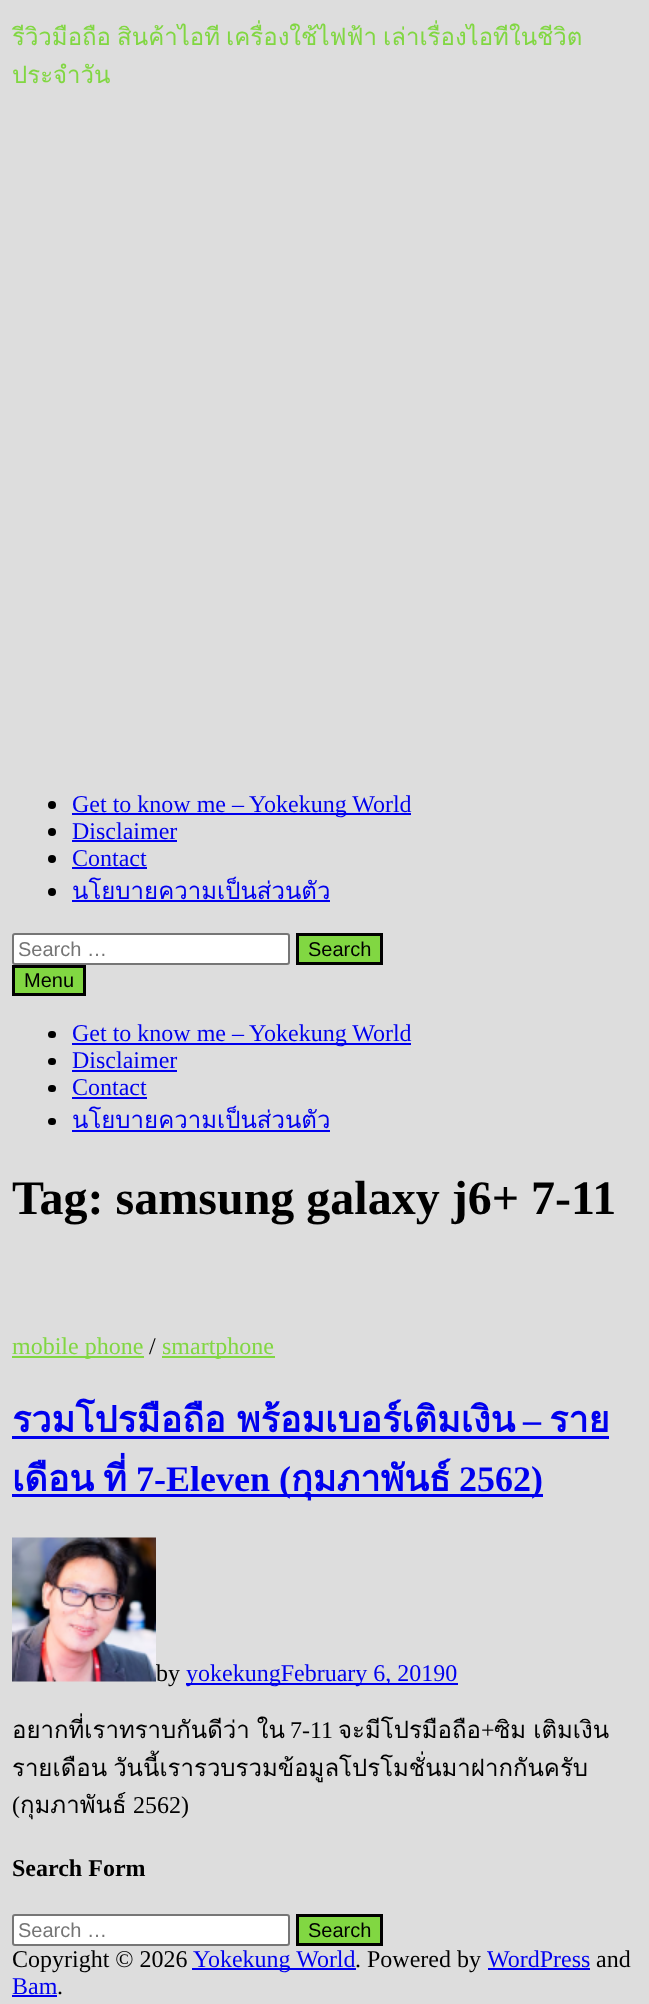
<?xml version="1.0" encoding="UTF-8"?>
<svg xmlns="http://www.w3.org/2000/svg" width="649" height="2004">
    <rect width="100%" height="100%" fill="#DDDDDD"/>
    <text font-family="Loma" font-size="24" fill="#81D742">
        <tspan x="12" y="45" word-spacing="-2">รีวิวมือถือ สินค้าไอที เครื่องใช้ไฟฟ้า เล่าเรื่องไอทีในชีวิต</tspan>
        <tspan x="12" y="83">ประจำวัน</tspan>
    </text>
    <circle cx="52" cy="805" r="4" fill="#000000"/>
    <rect x="72" y="813" width="339" height="2" fill="#0000EE"/>
    <text x="72" y="812" font-family="Liberation Serif" font-size="24" fill="#0000EE">Get to know me – Yokekung World</text>
    <circle cx="52" cy="832" r="4" fill="#000000"/>
    <text x="72" y="839" font-family="Liberation Serif" font-size="24" fill="#0000EE">Disclaimer</text>
    <rect x="72" y="840" width="105" height="2" fill="#0000EE"/>
    <circle cx="52" cy="859" r="4" fill="#000000"/>
    <text x="72" y="866" font-family="Liberation Serif" font-size="24" fill="#0000EE">Contact</text>
    <rect x="72" y="867" width="75" height="2" fill="#0000EE"/>
    <circle cx="52" cy="892" r="4" fill="#000000"/>
    <text x="72" y="899" font-family="Loma" font-size="24" fill="#0000EE">นโยบายความเป็นส่วนตัว</text>
    <rect x="72" y="900" width="258" height="2" fill="#0000EE"/>
    <rect x="13" y="934" width="276" height="30" rx="2" fill="#FFFFFF" stroke="#767676" stroke-width="2"/>
    <text x="18" y="956" font-family="Liberation Sans" font-size="20" fill="#757575">Search …</text>
    <rect x="297.5" y="934.5" width="84" height="29" fill="#81D742" stroke="#000000" stroke-width="3"/>
    <text x="308" y="956" font-family="Liberation Sans" font-size="20" fill="#000000">Search</text>
    <rect x="13.5" y="966.5" width="71" height="28" fill="#81D742" stroke="#000000" stroke-width="3"/>
    <text x="24" y="987" font-family="Liberation Sans" font-size="20" fill="#000000">Menu</text>
    <rect x="48" y="1031" width="8" height="7" rx="3.5" fill="#000000"/>
    <rect x="72" y="1043" width="339" height="2" fill="#0000EE"/>
    <text x="72" y="1041" font-family="Liberation Serif" font-size="24" fill="#0000EE">Get to know me – Yokekung World</text>
    <rect x="48" y="1058" width="8" height="7" rx="3.5" fill="#000000"/>
    <text x="72" y="1068" font-family="Liberation Serif" font-size="24" fill="#0000EE">Disclaimer</text>
    <rect x="72" y="1070" width="105" height="2" fill="#0000EE"/>
    <rect x="48" y="1085" width="8" height="7" rx="3.5" fill="#000000"/>
    <text x="72" y="1095" font-family="Liberation Serif" font-size="24" fill="#0000EE">Contact</text>
    <rect x="72" y="1097" width="75" height="2" fill="#0000EE"/>
    <rect x="48" y="1118" width="8" height="7" rx="3.5" fill="#000000"/>
    <text x="72" y="1128" font-family="Loma" font-size="24" fill="#0000EE">นโยบายความเป็นส่วนตัว</text>
    <rect x="72" y="1130" width="258" height="2" fill="#0000EE"/>
    <text x="12" y="1214" font-family="Liberation Serif" font-size="48" font-weight="700" fill="#000000">Tag: samsung galaxy j6+ 7-11</text>
    <rect x="12" y="1356" width="132" height="2" fill="#81D742"/>
    <text x="12" y="1354" font-family="Liberation Serif" font-size="24" fill="#81D742">mobile phone</text>
    <text x="149" y="1354" font-family="Liberation Serif" font-size="24" fill="#000000">/</text>
    <rect x="162" y="1356" width="113" height="2" fill="#81D742"/>
    <text x="162" y="1354" font-family="Liberation Serif" font-size="24" fill="#81D742">smartphone</text>
    <text x="12" y="1432" word-spacing="-1" font-family="Loma" font-size="36" font-weight="700" fill="#0000EE">รวมโปรมือถือ พร้อมเบอร์เติมเงิน</text>
    <text x="523" y="1432" font-family="Liberation Serif" font-size="36" font-weight="700" fill="#0000EE">–</text>
    <rect x="12" y="1436" width="597" height="3" fill="#0000EE"/>
    <text x="549" y="1432" font-family="Loma" font-size="36" font-weight="700" fill="#0000EE">ราย</text>
    <text x="12" y="1491" font-family="Loma" font-size="36" font-weight="700" fill="#0000EE">เดือน</text>
    <text x="103" y="1491" font-family="Loma" font-size="36" font-weight="700" fill="#0000EE">ที่</text>
    <rect x="12" y="1494" width="531" height="3" fill="#0000EE"/>
    <text x="136" y="1491" font-family="Liberation Serif" font-size="36" font-weight="700" fill="#0000EE">7-Eleven (</text>
    <text x="291" y="1491" font-family="Loma" font-size="36" font-weight="700" fill="#0000EE">กุมภาพันธ์</text>
    <text x="459" y="1491" font-family="Liberation Serif" font-size="36" font-weight="700" fill="#0000EE">2562)</text>
    <image x="12" y="1537" width="144" height="145" href="img_01.png"/>
    <text x="156" y="1681" font-family="Liberation Serif" font-size="24" fill="#000000">by</text>
    <rect x="186" y="1683" width="272" height="2" fill="#0000EE"/>
    <text x="186" y="1681" font-family="Liberation Serif" font-size="24" fill="#0000EE">yokekungFebruary 6, 20190</text>
    <text x="12" y="1738" word-spacing="-1" font-family="Loma" font-size="24" fill="#000000">อยากที่เราทราบกันดีว่า ใน</text>
    <text x="290" y="1738" font-family="Liberation Serif" font-size="24" fill="#000000">7-11</text>
    <text x="338" y="1738" font-family="Loma" font-size="24" fill="#000000">จะมีโปรมือถือ</text>
    <text x="481" y="1738" font-family="Liberation Serif" font-size="24" fill="#000000">+</text>
    <text x="494" y="1738" word-spacing="-1" font-family="Loma" font-size="24" fill="#000000">ซิม เติมเงิน</text>
    <text x="12" y="1776" word-spacing="-2" font-family="Loma" font-size="24" fill="#000000">รายเดือน วันนี้เรารวบรวมข้อมูลโปรโมชั่นมาฝากกันครับ</text>
    <text x="12" y="1813" font-family="Liberation Serif" font-size="24" fill="#000000">(</text>
    <text x="20" y="1813" font-family="Loma" font-size="24" fill="#000000">กุมภาพันธ์</text>
    <text x="133" y="1813" font-family="Liberation Serif" font-size="24" fill="#000000">2562)</text>
    <text x="12" y="1876" font-family="Liberation Serif" font-size="24" font-weight="700" fill="#000000">Search Form</text>
    <rect x="13" y="1915" width="276" height="30" rx="2" fill="#FFFFFF" stroke="#767676" stroke-width="2"/>
    <text x="18" y="1937" font-family="Liberation Sans" font-size="20" fill="#757575">Search …</text>
    <rect x="297.5" y="1915.5" width="84" height="29" fill="#81D742" stroke="#000000" stroke-width="3"/>
    <text x="308" y="1937" font-family="Liberation Sans" font-size="20" fill="#000000">Search</text>
    <text x="12" y="1967" font-family="Liberation Serif" font-size="24" fill="#000000">Copyright © 2026</text>
    <rect x="192" y="1968" width="164" height="2" fill="#0000EE"/>
    <text x="193" y="1967" font-family="Liberation Serif" font-size="24" fill="#0000EE">Yokekung World</text>
    <text x="355" y="1967" font-family="Liberation Serif" font-size="24" fill="#000000">. Powered by</text>
    <text x="487" y="1967" font-family="Liberation Serif" font-size="24" fill="#0000EE">WordPress</text>
    <rect x="488" y="1968" width="102" height="2" fill="#0000EE"/>
    <text x="596" y="1967" font-family="Liberation Serif" font-size="24" fill="#000000">and</text>
    <text x="12" y="1994" font-family="Liberation Serif" font-size="24" fill="#0000EE">Bam</text>
    <rect x="12" y="1995" width="45" height="2" fill="#0000EE"/>
    <text x="57" y="1994" font-family="Liberation Serif" font-size="24" fill="#000000">.</text>
</svg>
